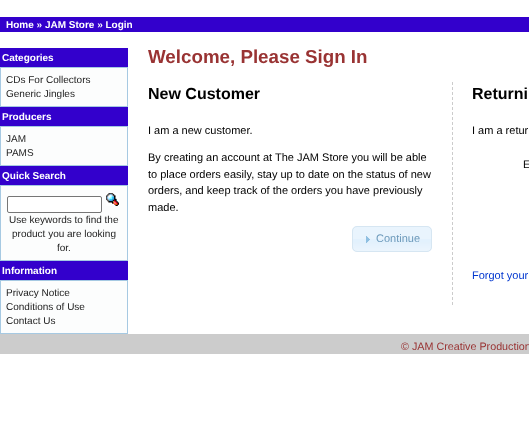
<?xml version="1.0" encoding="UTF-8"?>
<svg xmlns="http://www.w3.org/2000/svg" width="529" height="447">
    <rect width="100%" height="100%" fill="#FFFFFF"/>
    <rect x="0" y="17" width="529" height="15" fill="#3300CC"/>
    <text x="6" y="28" font-family="Liberation Sans" font-size="10" font-weight="700" fill="#FFFFFF">Home » JAM Store » Login</text>
    <rect x="0" y="48" width="128" height="19" fill="#3300CC"/>
    <text x="2" y="61" font-family="Liberation Sans" font-size="10" font-weight="700" fill="#FFFFFF">Categories</text>
    <rect x="0.5" y="67.5" width="127" height="39" fill="#FCFDFD" stroke="#A6C9E2"/>
    <text font-family="Liberation Sans" font-size="10" fill="#222222">
        <tspan x="6" y="83">CDs For Collectors</tspan>
        <tspan x="6" y="97">Generic Jingles</tspan>
    </text>
    <rect x="0" y="107" width="128" height="19" fill="#3300CC"/>
    <text x="2" y="120" font-family="Liberation Sans" font-size="10" font-weight="700" fill="#FFFFFF">Producers</text>
    <rect x="0.5" y="126.5" width="127" height="39" fill="#FCFDFD" stroke="#A6C9E2"/>
    <text font-family="Liberation Sans" font-size="10" fill="#222222">
        <tspan x="6" y="142">JAM</tspan>
        <tspan x="6" y="156">PAMS</tspan>
    </text>
    <rect x="0" y="166" width="128" height="19" fill="#3300CC"/>
    <text x="2" y="179" font-family="Liberation Sans" font-size="10" font-weight="700" fill="#FFFFFF">Quick Search</text>
    <rect x="0.5" y="185.5" width="127" height="75" fill="#FCFDFD" stroke="#A6C9E2"/>
    <rect x="7.5" y="196.5" width="94" height="16" rx="1.5" fill="#FFFFFF" stroke="#767676"/>
    <image x="106" y="193" width="13" height="13" href="img_01.png"/>
    <text x="9" y="223" font-family="Liberation Sans" font-size="10" fill="#222222">Use keywords to find the</text>
    <text x="12" y="237" font-family="Liberation Sans" font-size="10" fill="#222222">product you are looking</text>
    <text x="57" y="251" font-family="Liberation Sans" font-size="10" fill="#222222">for.</text>
    <rect x="0" y="261" width="128" height="19" fill="#3300CC"/>
    <text x="2" y="274" font-family="Liberation Sans" font-size="10" font-weight="700" fill="#FFFFFF">Information</text>
    <rect x="0.5" y="280.5" width="127" height="53" fill="#FCFDFD" stroke="#A6C9E2"/>
    <text font-family="Liberation Sans" font-size="10" fill="#222222">
        <tspan x="6" y="296">Privacy Notice</tspan>
        <tspan x="6" y="310">Conditions of Use</tspan>
        <tspan x="6" y="324">Contact Us</tspan>
    </text>
    <text x="148" y="63" font-family="Liberation Sans" font-size="18.75" font-weight="700" fill="#993333">Welcome, Please Sign In</text>
    <text x="148" y="99" font-family="Liberation Sans" font-size="16" font-weight="700" fill="#000000">New Customer</text>
    <text x="148" y="134" font-family="Liberation Sans" font-size="11" fill="#000000">I am a new customer.</text>
    <text font-family="Liberation Sans" font-size="11" fill="#000000">
        <tspan x="148" y="161">By creating an account at The JAM Store you will be able</tspan>
        <tspan x="148" y="178">to place orders easily, stay up to date on the status of new</tspan>
        <tspan x="148" y="194">orders, and keep track of the orders you have previously</tspan>
        <tspan x="148" y="211">made.</tspan>
    </text>
    <rect x="352" y="226" width="80" height="26" rx="5" fill="#E9F4FD"/>
    <image x="352" y="239" width="80" height="12" href="img_02.png"/>
    <rect x="352.5" y="226.5" width="79" height="25" rx="4.5" fill="none" stroke="#D6E6F2"/>
    <image x="366" y="236" width="4" height="7" href="img_03.png"/>
    <text x="376" y="242" font-family="Liberation Sans" font-size="11" fill="#6D9ABB">Continue</text>
    <path d="M 452.5 82 V 305" fill="none" stroke="#CCCCCC" stroke-dasharray="3 2"/>
    <text x="472" y="99" font-family="Liberation Sans" font-size="16" font-weight="700" fill="#000000">Returni</text>
    <text x="472" y="134" font-family="Liberation Sans" font-size="11" fill="#000000">I am a retur</text>
    <text x="523" y="168" font-family="Liberation Sans" font-size="11" fill="#000000">E</text>
    <text x="472" y="279" font-family="Liberation Sans" font-size="11" fill="#0036CF">Forgot your</text>
    <rect x="0" y="334" width="529" height="20" fill="#CCCCCC"/>
    <text x="401" y="350" font-family="Liberation Sans" font-size="10.75" fill="#993333">© JAM Creative Production</text>
</svg>
